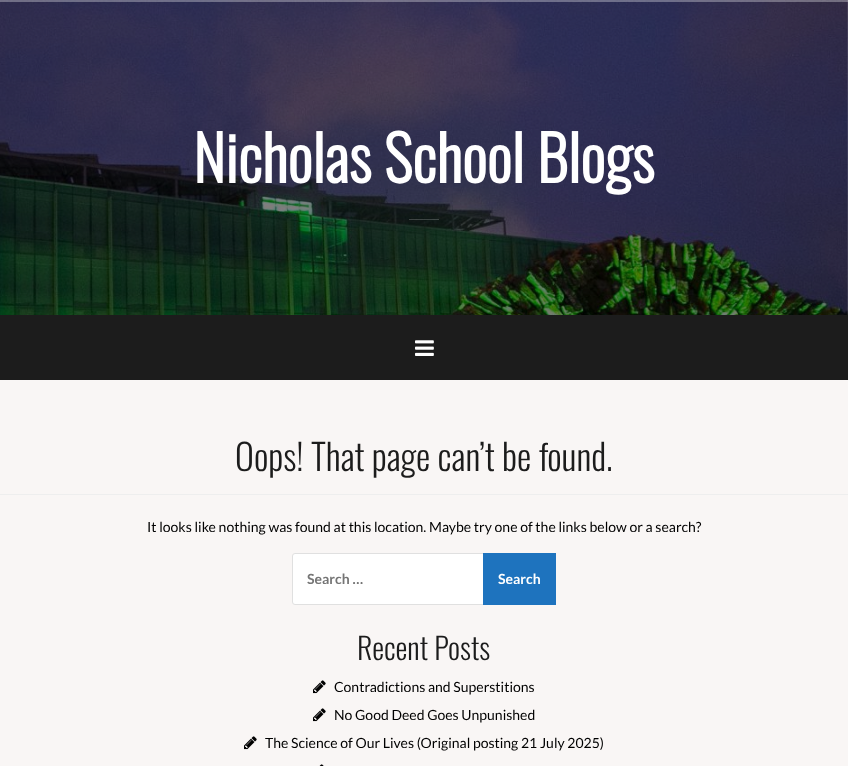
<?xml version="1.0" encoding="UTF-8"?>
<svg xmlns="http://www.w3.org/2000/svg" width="848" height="766">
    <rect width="100%" height="100%" fill="#F9F6F5"/>
    <image x="0" y="0" width="848" height="315" href="img_01.png"/>
    <rect x="0" y="0" width="848" height="2" fill="#FFFFFF" fill-opacity="0.15"/>
    <rect x="0" y="0" width="848" height="1" fill="#FFFFFF" fill-opacity="0.2"/>
    <rect x="0" y="1" width="848" height="1" fill="#FFFFFF" fill-opacity="0.2"/>
    <text x="193" y="183" font-family="Oswald" font-size="62" font-weight="700" fill="#FFFFFF">Nicholas School Blogs</text>
    <rect x="409" y="219" width="30" height="1" fill="#FFFFFF" fill-opacity="0.2"/>
    <rect x="0" y="315" width="848" height="65" fill="#1C1C1C"/>
    <image x="415" y="340" width="19" height="16" href="img_02.png"/>
    <rect x="0" y="494" width="848" height="1" fill="#EEEEEE"/>
    <text x="235" y="471" font-family="Oswald" font-size="36" font-weight="300" fill="#1C1C1C">Oops! That page can’t be found.</text>
    <text x="147" y="532" font-family="Lato" font-size="14" fill="#000000">It looks like nothing was found at this location. Maybe try one of the links below or a search?</text>
    <rect x="292.5" y="553.5" width="217" height="51" rx="2.5" fill="#FFFFFF" stroke="#E0E0E0"/>
    <text x="307" y="584" font-family="Lato" font-size="14" font-weight="700" fill="#757575">Search …</text>
    <rect x="483" y="553" width="73" height="52" fill="#1E73BE"/>
    <text x="498" y="584" font-family="Lato" font-size="14" font-weight="700" fill="#FFFFFF">Search</text>
    <text x="357" y="660" font-family="Oswald" font-size="30" font-weight="300" fill="#1C1C1C">Recent Posts</text>
    <image x="313" y="680" width="13" height="14" href="img_03.png"/>
    <text x="334" y="692" font-family="Lato" font-size="14" fill="#000000">Contradictions and Superstitions</text>
    <image x="313" y="708" width="13" height="14" href="img_03.png"/>
    <text x="334" y="720" font-family="Lato" font-size="14" fill="#000000">No Good Deed Goes Unpunished</text>
    <image x="244" y="736" width="13" height="14" href="img_03.png"/>
    <text x="265" y="748" font-family="Lato" font-size="14" fill="#000000">The Science of Our Lives (Original posting 21 July 2025)</text>
    <image x="319" y="764" width="5" height="2" href="img_04.png"/>
</svg>
